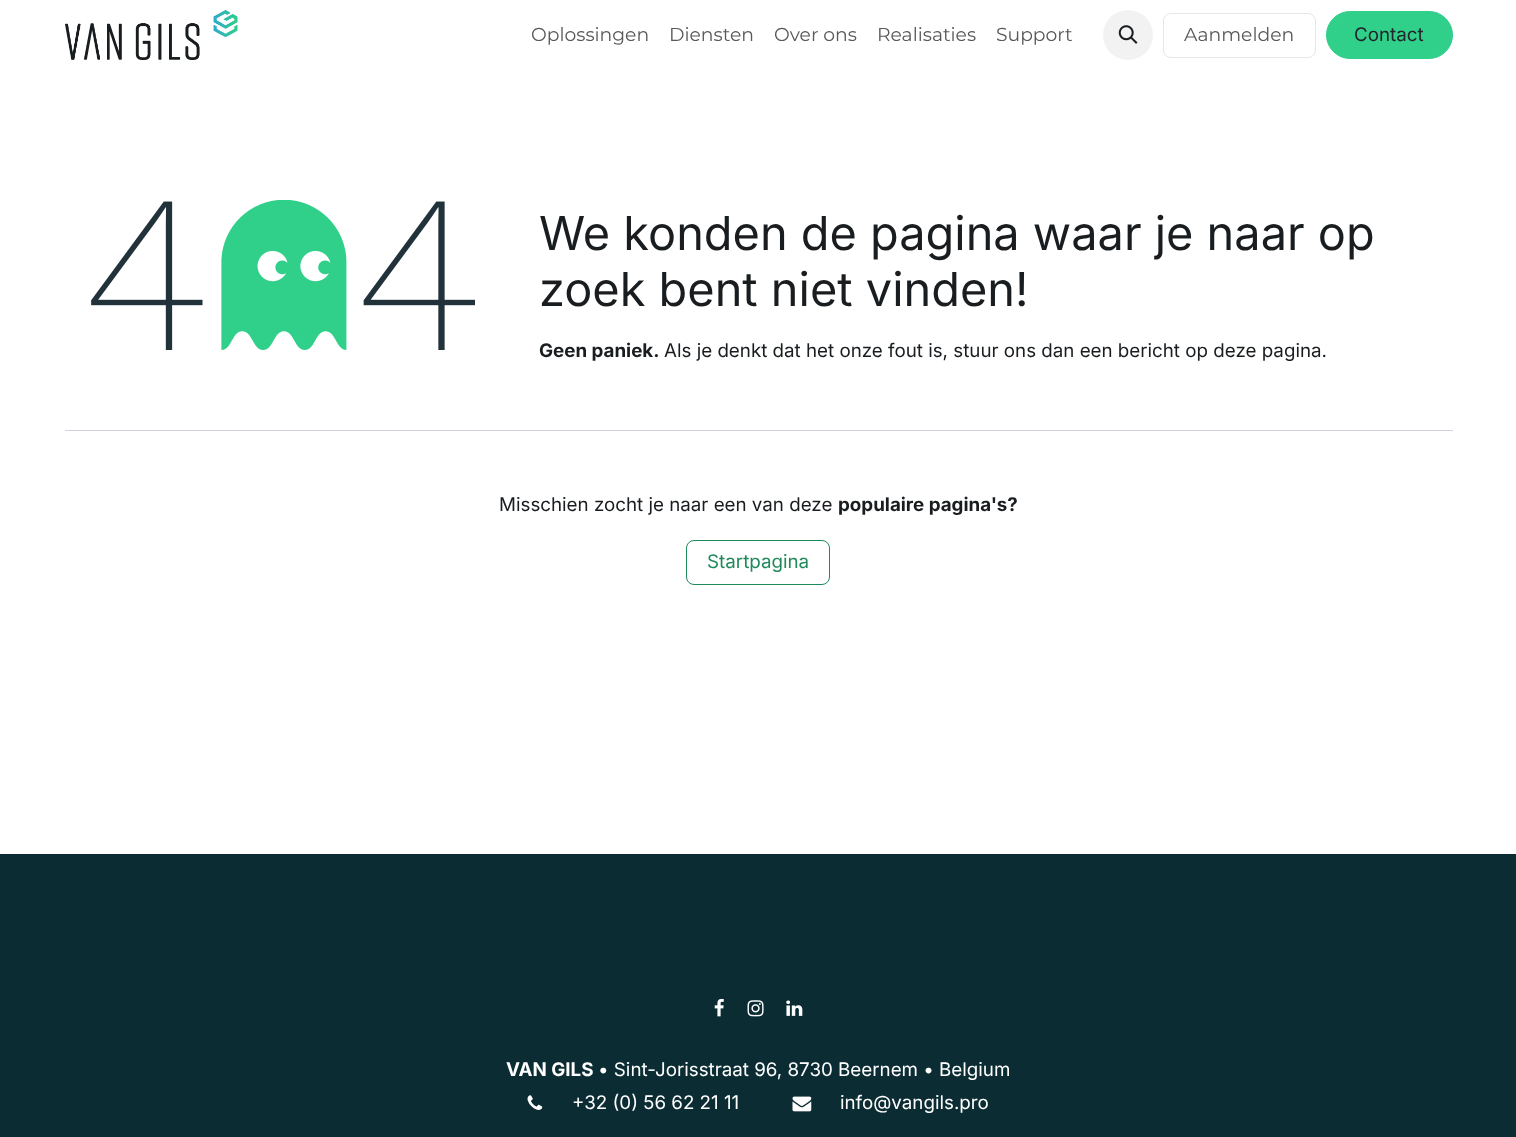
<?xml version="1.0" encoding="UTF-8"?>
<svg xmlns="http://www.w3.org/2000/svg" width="1516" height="1137">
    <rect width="100%" height="100%" fill="#FFFFFF"/>
    <image x="65" y="10" width="173" height="50" href="img_01.png"/>
    <text x="531" y="41" font-family="Montserrat" font-size="18.75" fill="#595959">Oplossingen</text>
    <text x="669" y="41" font-family="Montserrat" font-size="18.75" fill="#595959">Diensten</text>
    <text x="774" y="41" font-family="Montserrat" font-size="18.75" fill="#595959">Over ons</text>
    <text x="877" y="41" font-family="Montserrat" font-size="18.75" fill="#595959">Realisaties</text>
    <text x="996" y="41" font-family="Montserrat" font-size="18.75" fill="#595959">Support</text>
    <circle cx="1128" cy="35" r="25" fill="#F2F2F2"/>
    <image x="1118" y="25" width="20" height="19" href="img_02.png"/>
    <rect x="1163.5" y="13.5" width="152" height="44" rx="7.5" fill="none" stroke="#E6E6E6"/>
    <text x="1184" y="41" font-family="Montserrat" font-size="18.75" fill="#595959">Aanmelden</text>
    <rect x="1326.5" y="11.5" width="126" height="47" rx="23.5" fill="#30CF8A" stroke="#30CF8A"/>
    <text x="1354" y="41" font-family="Inter" font-size="18.75" fill="#212529">Contact</text>
    <image x="91" y="200" width="384" height="150" href="img_03.png"/>
    <text font-family="Inter" font-size="46.9" fill="#191D1F">
        <tspan x="539" y="250">We konden de pagina waar je naar op</tspan>
        <tspan x="539" y="306">zoek bent niet vinden!</tspan>
    </text>
    <text x="539" y="357" font-family="Inter" font-size="18.75" font-weight="700" fill="#191D1F">Geen paniek.</text>
    <text x="664" y="357" font-family="Inter" font-size="18.75" fill="#191D1F">Als je denkt dat het onze fout is, stuur ons dan een bericht op deze pagina.</text>
    <rect x="65" y="430" width="1388" height="1" fill="#CED4DA"/>
    <text x="499" y="511" font-family="Inter" font-size="18.75" fill="#191D1F">Misschien zocht je naar een van deze</text>
    <text x="838" y="511" font-family="Inter" font-size="18.75" font-weight="700" fill="#191D1F">populaire pagina's?</text>
    <rect x="686.5" y="540.5" width="143" height="44" rx="7.5" fill="none" stroke="#20895B"/>
    <text x="707" y="568" font-family="Inter" font-size="18.75" fill="#20895B">Startpagina</text>
    <rect x="0" y="854" width="1516" height="283" fill="#0B2C33"/>
    <image x="714" y="998" width="10" height="19" href="img_04.png"/>
    <image x="747" y="1000" width="17" height="17" href="img_05.png"/>
    <image x="786" y="1000" width="17" height="16" href="img_06.png"/>
    <text x="506" y="1076" font-family="Inter" font-size="18.75" font-weight="700" fill="#FFFFFF">VAN GILS</text>
    <text x="598" y="1076" font-family="Inter" font-size="18.75" fill="#FFFFFF">• Sint-Jorisstraat 96, 8730 Beernem • Belgium</text>
    <image x="527" y="1095" width="16" height="15" href="img_07.png"/>
    <text x="572" y="1109" font-family="Inter" font-size="18.75" fill="#FFFFFF">+32 (0) 56 62 21 11</text>
    <image x="792" y="1096" width="20" height="16" href="img_08.png"/>
    <text x="840" y="1109" font-family="Inter" font-size="18.75" fill="#FFFFFF">info@vangils.pro</text>
</svg>
